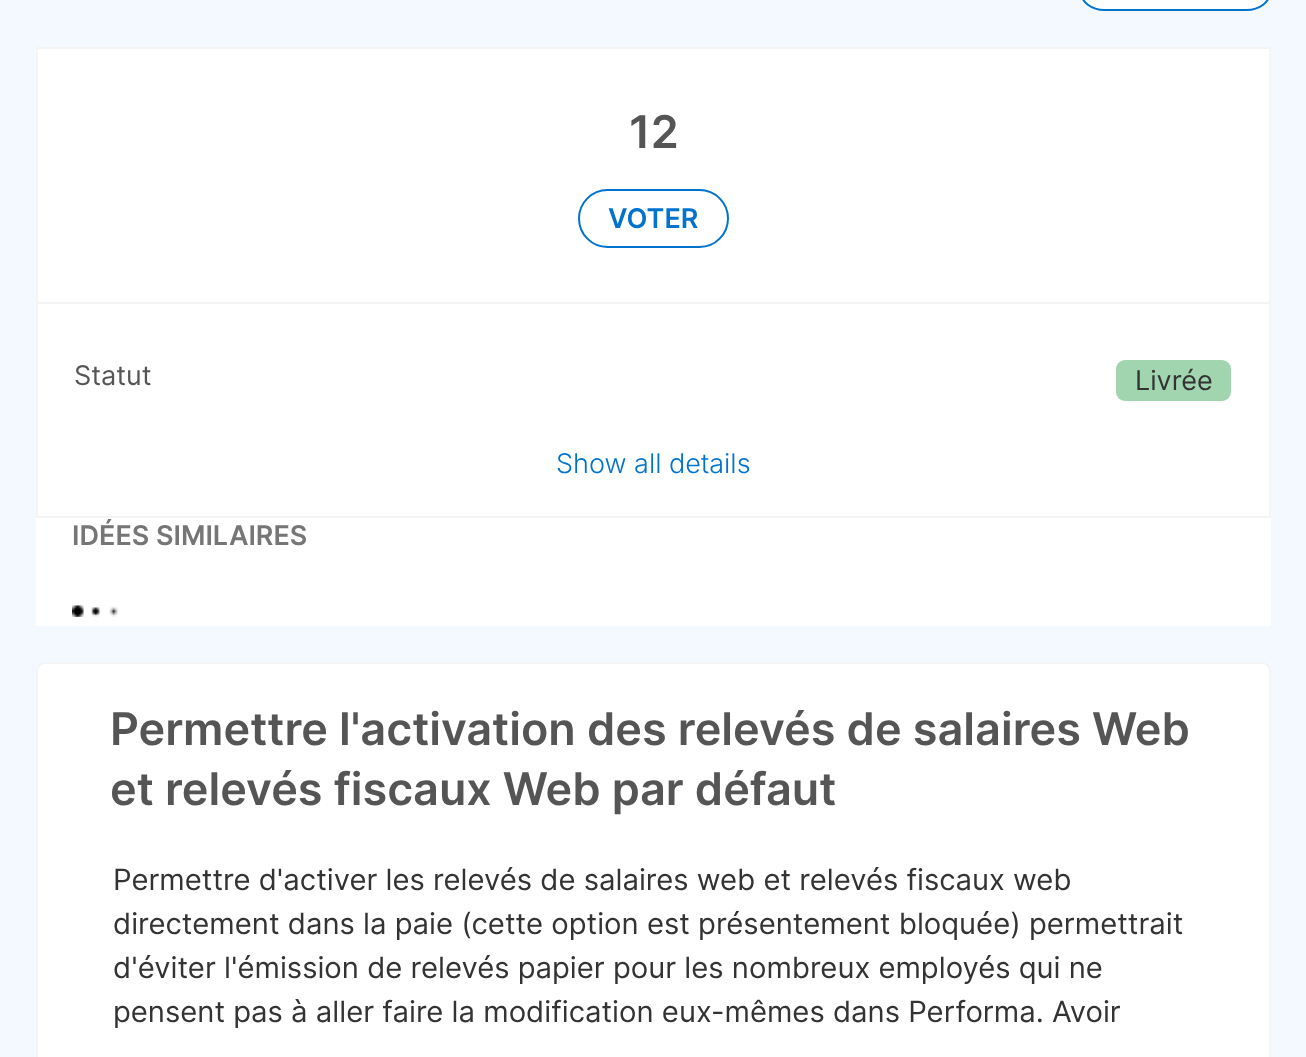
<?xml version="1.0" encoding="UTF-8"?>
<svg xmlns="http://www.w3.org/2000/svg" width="1306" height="1057">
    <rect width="100%" height="100%" fill="#F3F9FE"/>
    <rect x="1081" y="-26" width="189" height="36" rx="23.5" fill="#FFFFFF" stroke="#0073CF" stroke-width="2"/>
    <rect x="36" y="49" width="1235" height="577" fill="#FFFFFF"/>
    <rect x="37" y="48" width="1233" height="469" fill="none" stroke="#F4F4F4" stroke-width="2"/>
    <text x="629" y="148" font-family="Inter" font-size="45" font-weight="600" fill="#555555">12</text>
    <rect x="579" y="190" width="149" height="57" rx="28.5" fill="none" stroke="#0073CF" stroke-width="2"/>
    <text x="608" y="228" font-family="Inter" font-size="27" font-weight="600" fill="#0073CF">VOTER</text>
    <rect x="38" y="302" width="1231" height="2" fill="#F4F4F4"/>
    <text x="74" y="385" font-family="Inter" font-size="27" fill="#555555">Statut</text>
    <rect x="1116" y="360" width="115" height="41" rx="9" fill="#A0D5B0"/>
    <text x="1135" y="390" font-family="Inter" font-size="27" fill="#333333">Livrée</text>
    <text x="556" y="473" font-family="Inter" font-size="27" font-weight="300" fill="#0073CF">Show all details</text>
    <text x="72" y="545" font-family="Inter" font-size="27" font-weight="600" fill="#767676">IDÉES SIMILAIRES</text>
    <image x="72" y="605" width="47" height="12" href="img_01.png"/>
    <rect x="37" y="663" width="1233" height="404" rx="8" fill="#FFFFFF" stroke="#F4F4F4" stroke-width="2"/>
    <text font-family="Inter" font-size="45" font-weight="600" fill="#555555">
        <tspan x="110" y="745">Permettre l'activation des relevés de salaires Web</tspan>
        <tspan x="110" y="805">et relevés fiscaux Web par défaut</tspan>
    </text>
    <text font-family="Inter" font-size="29.25" fill="#333333">
        <tspan x="113" y="890">Permettre d'activer les relevés de salaires web et relevés fiscaux web</tspan>
        <tspan x="113" y="934">directement dans la paie (cette option est présentement bloquée) permettrait</tspan>
        <tspan x="113" y="978">d'éviter l'émission de relevés papier pour les nombreux employés qui ne</tspan>
        <tspan x="113" y="1022">pensent pas à aller faire la modification eux-mêmes dans Performa. Avoir</tspan>
    </text>
</svg>
